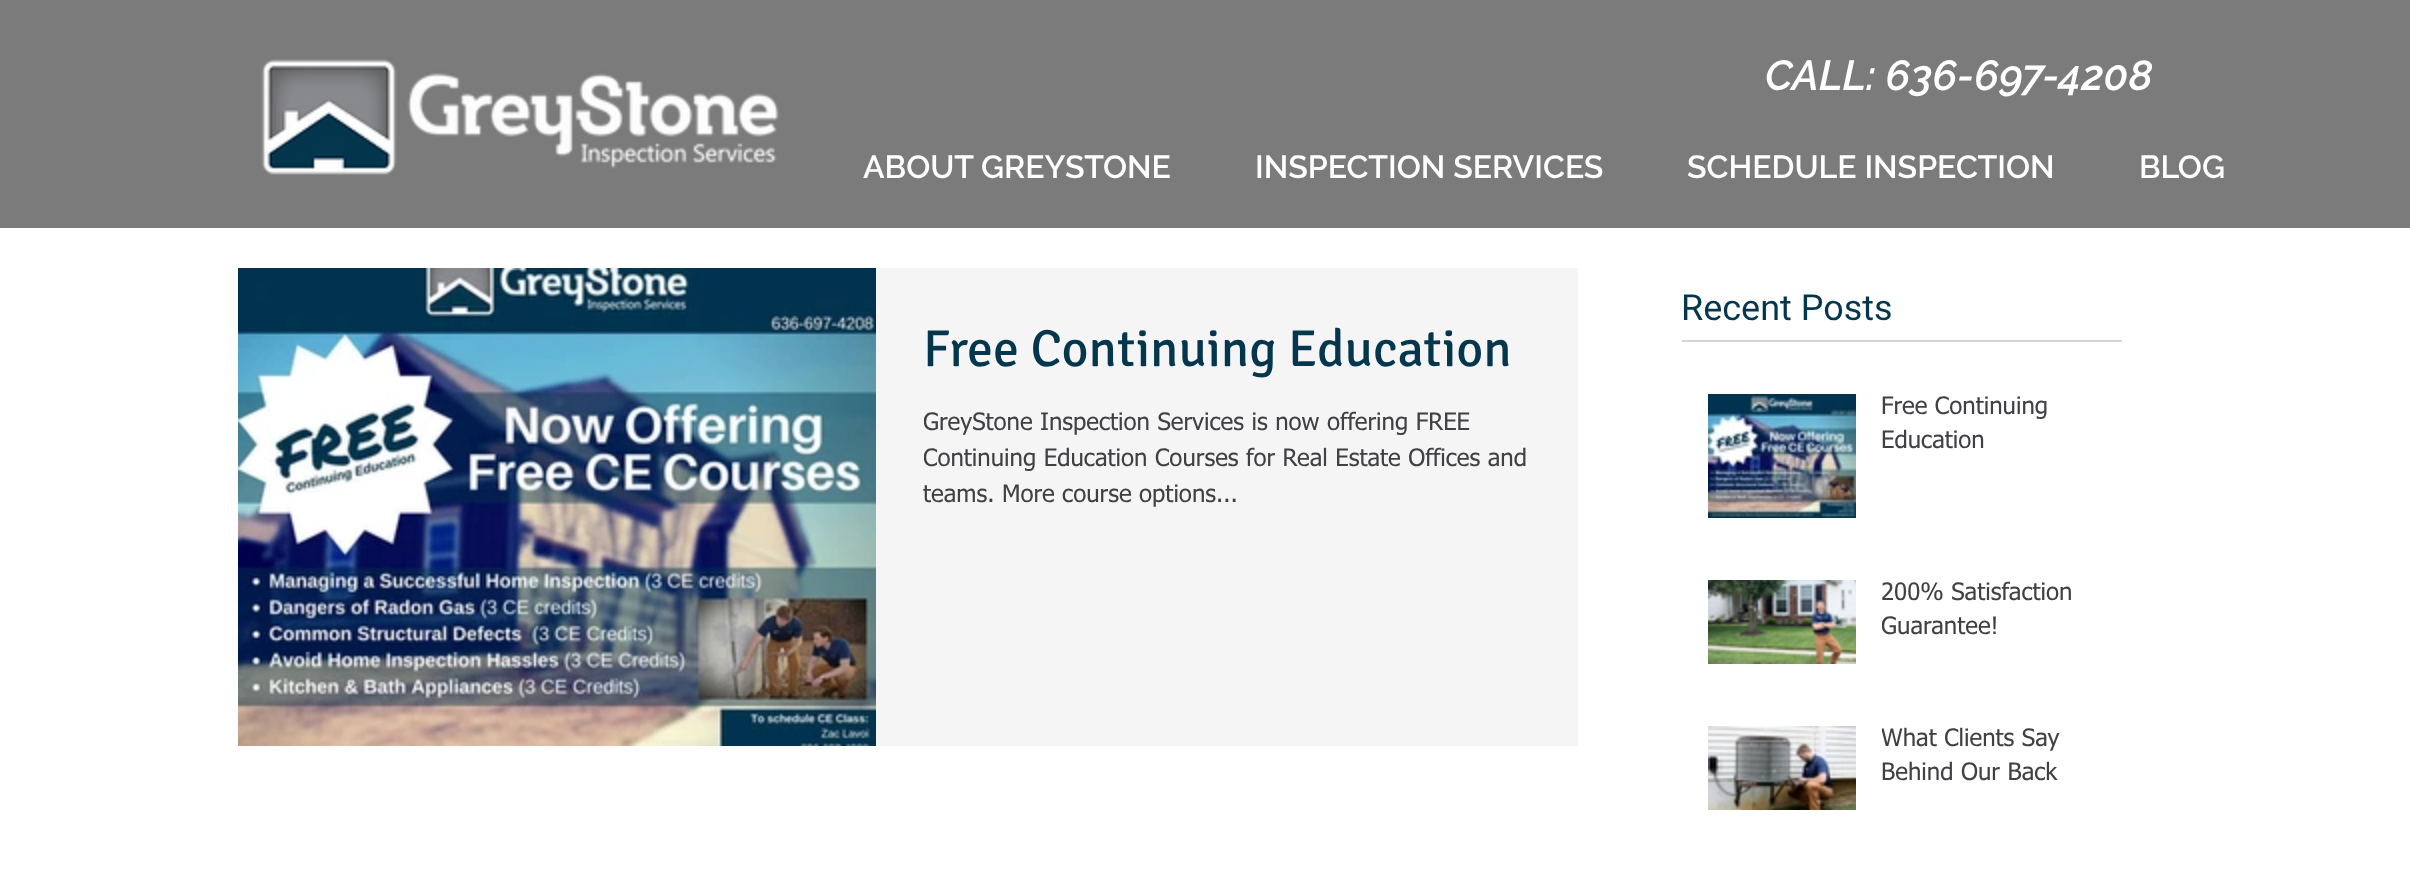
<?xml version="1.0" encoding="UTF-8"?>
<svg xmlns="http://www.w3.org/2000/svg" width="2410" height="874">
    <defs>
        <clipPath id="clip1"><rect x="924" y="406" width="606" height="108"/></clipPath>
        <clipPath id="clip2"><rect x="1882" y="578" width="216" height="68"/></clipPath>
        <clipPath id="clip3"><rect x="1882" y="724" width="216" height="68"/></clipPath>
    </defs>
    <rect width="100%" height="100%" fill="#FFFFFF"/>
    <rect x="0" y="0" width="2410" height="228" fill="#7B7B7B"/>
    <image x="261" y="59" width="518" height="116" href="img_01.png"/>
    <text x="1765" y="90" font-family="Raleway" font-size="42" font-weight="600" font-style="italic" fill="#FFFFFF">CALL: 636-697-4208</text>
    <text x="863" y="178" font-family="Raleway" font-size="32" font-weight="600" fill="#FFFFFF">ABOUT GREYSTONE</text>
    <text x="1255" y="178" font-family="Raleway" font-size="32" font-weight="600" fill="#FFFFFF">INSPECTION SERVICES</text>
    <text x="1687" y="178" font-family="Raleway" font-size="32" font-weight="600" fill="#FFFFFF">SCHEDULE INSPECTION</text>
    <text x="2139" y="178" font-family="Raleway" font-size="32" font-weight="600" fill="#FFFFFF">BLOG</text>
    <text x="1681" y="320" font-family="Roboto" font-size="36" fill="#04364E">Recent Posts</text>
    <image x="238" y="268" width="638" height="478" href="img_02.png"/>
    <rect x="876" y="268" width="702" height="478" fill="#F5F5F6"/>
    <text x="923" y="366" font-family="Signika" font-size="52" fill="#04364E">Free Continuing Education</text>
    <g clip-path="url(#clip1)">
        <text font-family="tahoma" font-size="24" fill="#404144">
            <tspan x="923" y="430">GreyStone Inspection Services is now offering FREE</tspan>
            <tspan x="923" y="466">Continuing Education Courses for Real Estate Offices and</tspan>
        </text>
    </g>
    <text x="923" y="502" font-family="tahoma" font-size="24" fill="#404144">teams. More course options...</text>
    <rect x="1682" y="340" width="440" height="2" fill="#D5D5D5"/>
    <image x="1708" y="394" width="148" height="124" href="img_03.png"/>
    <text font-family="tahoma" font-size="24" fill="#404144">
        <tspan x="1881" y="414">Free Continuing</tspan>
        <tspan x="1881" y="448">Education</tspan>
    </text>
    <image x="1708" y="580" width="148" height="84" href="img_04.png"/>
    <text x="1881" y="600" font-family="tahoma" font-size="24" fill="#404144">200% Satisfaction</text>
    <g clip-path="url(#clip2)">
        <text x="1881" y="634" font-family="tahoma" font-size="24" fill="#404144">Guarantee!</text>
    </g>
    <image x="1708" y="726" width="148" height="84" href="img_05.png"/>
    <g clip-path="url(#clip3)">
        <text x="1881" y="746" font-family="tahoma" font-size="24" fill="#404144">What Clients Say</text>
    </g>
    <text x="1881" y="780" font-family="tahoma" font-size="24" fill="#404144">Behind Our Back</text>
</svg>
